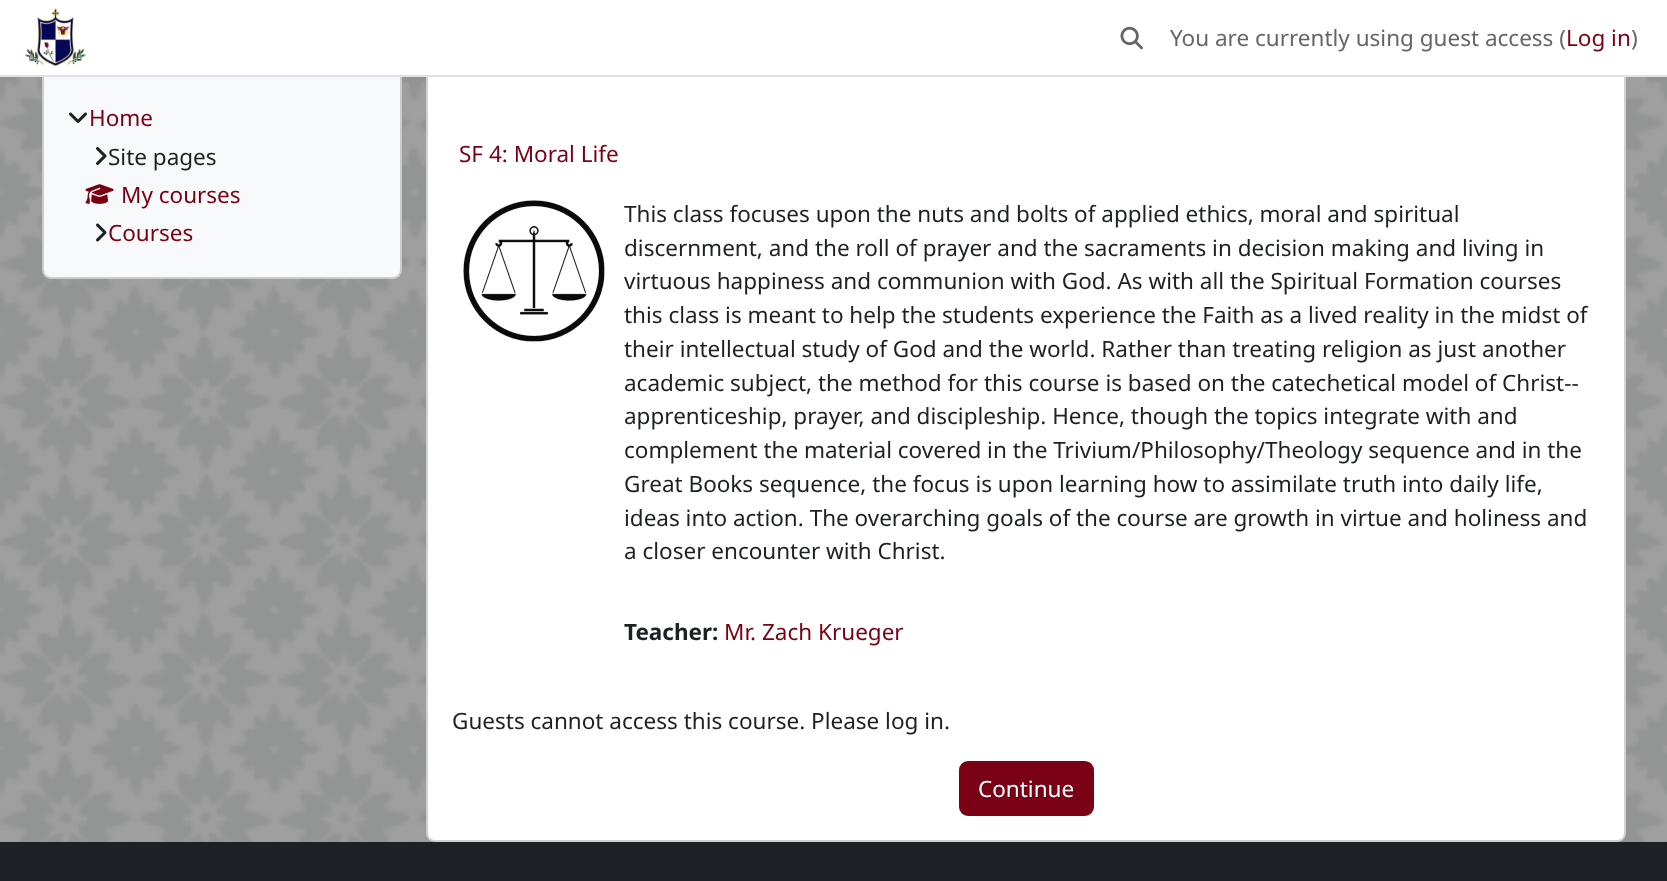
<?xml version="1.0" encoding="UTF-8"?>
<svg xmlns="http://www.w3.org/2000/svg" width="1667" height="881">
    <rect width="100%" height="100%" fill="#FFFFFF"/>
    <image x="0" y="77" width="1667" height="765" href="img_01.png"/>
    <rect x="42" y="17" width="360" height="262" rx="9" fill="#F8F9FA"/>
    <rect x="43" y="18" width="358" height="260" rx="8" fill="none" stroke="#000000" stroke-opacity="0.18" stroke-width="2"/>
    <rect x="426" y="17" width="1200" height="825" rx="9" fill="#FFFFFF"/>
    <rect x="427" y="18" width="1198" height="823" rx="8" fill="none" stroke="#000000" stroke-opacity="0.18" stroke-width="2"/>
    <rect x="42" y="17" width="1584" height="58" fill="#FFFFFF"/>
    <rect x="0" y="75" width="1667" height="2" fill="#DEE2E6"/>
    <image x="25" y="8" width="61" height="59" href="img_02.png"/>
    <image x="1120" y="26" width="23" height="24" href="img_03.png"/>
    <text x="1170" y="46" font-family="Noto Sans" font-size="22.5" fill="#666666">You are currently using guest access (</text>
    <text x="1566" y="46" font-family="Noto Sans" font-size="22.5" fill="#7A0015">Log in</text>
    <text x="1631" y="46" font-family="Noto Sans" font-size="22.5" fill="#666666">)</text>
    <image x="69" y="112" width="18" height="11" href="img_04.png"/>
    <text x="89" y="126" font-family="Noto Sans" font-size="22.5" fill="#7A0015">Home</text>
    <image x="96" y="147" width="11" height="18" href="img_05.png"/>
    <text x="108" y="165" font-family="Noto Sans" font-size="22.5" fill="#1D2125">Site pages</text>
    <image x="85" y="184" width="29" height="20" href="img_06.png"/>
    <text x="121" y="203" font-family="Noto Sans" font-size="22.5" fill="#7A0015">My courses</text>
    <image x="96" y="223" width="11" height="19" href="img_07.png"/>
    <text x="108" y="241" font-family="Noto Sans" font-size="22.5" fill="#7A0015">Courses</text>
    <text x="459" y="162" font-family="Noto Sans" font-size="22.5" fill="#7A0015">SF 4: Moral Life</text>
    <image x="463" y="200" width="142" height="142" href="img_08.png"/>
    <text font-family="Noto Sans" font-size="22.5" fill="#1D2125">
        <tspan x="624" y="222">This class focuses upon the nuts and bolts of applied ethics, moral and spiritual</tspan>
        <tspan x="624" y="256">discernment, and the roll of prayer and the sacraments in decision making and living in</tspan>
        <tspan x="624" y="289">virtuous happiness and communion with God. As with all the Spiritual Formation courses</tspan>
        <tspan x="624" y="323">this class is meant to help the students experience the Faith as a lived reality in the midst of</tspan>
        <tspan x="624" y="357">their intellectual study of God and the world. Rather than treating religion as just another</tspan>
        <tspan x="624" y="391">academic subject, the method for this course is based on the catechetical model of Christ--</tspan>
        <tspan x="624" y="424">apprenticeship, prayer, and discipleship. Hence, though the topics integrate with and</tspan>
        <tspan x="624" y="458">complement the material covered in the Trivium/Philosophy/Theology sequence and in the</tspan>
        <tspan x="624" y="492">Great Books sequence, the focus is upon learning how to assimilate truth into daily life,</tspan>
        <tspan x="624" y="526">ideas into action. The overarching goals of the course are growth in virtue and holiness and</tspan>
        <tspan x="624" y="559">a closer encounter with Christ.</tspan>
    </text>
    <text x="624" y="640" font-family="Noto Sans" font-size="22.5" font-weight="700" fill="#1D2125">Teacher:</text>
    <text x="724" y="640" font-family="Noto Sans" font-size="22.5" fill="#7A0015">Mr. Zach Krueger</text>
    <text x="452" y="729" font-family="Noto Sans" font-size="22.5" fill="#1D2125">Guests cannot access this course. Please log in.</text>
    <rect x="960" y="762" width="133" height="53" rx="8" fill="#7A0015" stroke="#7A0015" stroke-width="2"/>
    <text x="978" y="797" font-family="Noto Sans" font-size="22.5" fill="#FFFFFF">Continue</text>
    <rect x="0" y="842" width="1667" height="39" fill="#1D2125"/>
</svg>
